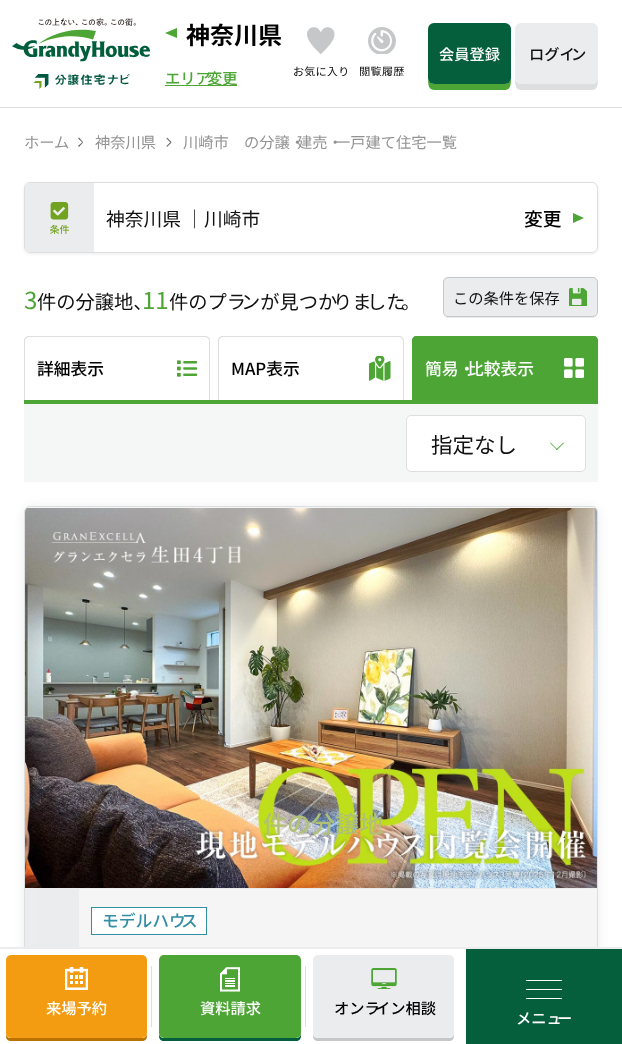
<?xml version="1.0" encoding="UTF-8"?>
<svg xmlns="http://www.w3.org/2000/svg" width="622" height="1044">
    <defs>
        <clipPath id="clip1"><path d="M 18 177 H 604 V 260 H 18 Z M 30 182 H 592 C 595.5 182 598 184.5 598 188 V 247 C 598 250.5 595.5 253 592 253 H 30 C 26.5 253 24 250.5 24 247 V 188 C 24 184.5 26.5 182 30 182 Z" clip-rule="evenodd"/></clipPath>
        <filter id="blur1" x="-50%" y="-200%" width="200%" height="500%"><feGaussianBlur stdDeviation="1.5"/></filter>
        <filter id="blur2" x="-50%" y="-200%" width="200%" height="500%"><feGaussianBlur stdDeviation="6"/></filter>
    </defs>
    <rect width="100%" height="100%" fill="#FFFFFF"/>
    <rect x="0" y="107" width="622" height="1" fill="#DDDEDF"/>
    <image x="12" y="18" width="138" height="71" href="img_01.png"/>
    <path d="M 177 28 V 38 L 165 33 Z" fill="#4CA535"/>
    <text x="186" y="44" font-family="Noto Sans JP" font-size="24" font-weight="700" fill="#000000">神奈川県</text>
    <rect x="165" y="85" width="72" height="1" fill="#4CA535"/>
    <text x="165" y="84" font-family="Noto Sans JP" font-size="15.25" font-weight="500" fill="#4CA535">エリア</text>
    <text x="207" y="84" font-family="Noto Sans JP" font-size="15.25" font-weight="500" fill="#4CA535">変更</text>
    <image x="307" y="27" width="28" height="27" href="img_02.png"/>
    <image x="294" y="66" width="53" height="10" href="img_03.png"/>
    <image x="368" y="27" width="28" height="27" href="img_04.png"/>
    <image x="360" y="66" width="44" height="10" href="img_05.png"/>
    <path d="M 428 78 C 428 92 431 90 446 90 H 493 C 508 90 511 92 511 78 C 511 81 508 84 505 84 H 434 C 431 84 428 81 428 78 Z" fill="#4CA535"/>
    <rect x="428" y="23" width="83" height="61" rx="6" fill="#055E3C"/>
    <text x="439" y="60" font-family="Noto Sans JP" font-size="15.25" font-weight="500" fill="#FFFFFF">会員登録</text>
    <path d="M 515 78 C 515 92 518 90 533 90 H 580 C 595 90 598 92 598 78 C 598 81 595 84 592 84 H 521 C 518 84 515 81 515 78 Z" fill="#DDDEDF"/>
    <rect x="515" y="23" width="83" height="61" rx="6" fill="#EBECED"/>
    <text x="529" y="60" font-family="Noto Sans JP" font-size="15.25" font-weight="500" fill="#111111">ログイ</text>
    <text x="571" y="60" font-family="Noto Sans JP" font-size="15.25" font-weight="500" fill="#111111">ン</text>
    <text x="24" y="148" font-family="Noto Sans JP" font-size="15.25" fill="#939393">ホーム</text>
    <path d="M 79 137.5 L 83 142 L 82.5 142.5 L 78 138.5 Z" fill="#666666"/>
    <path d="M 78 146 L 82.5 142 L 83 142.5 L 79 147 Z" fill="#666666"/>
    <text x="95" y="148" font-family="Noto Sans JP" font-size="15.25" fill="#939393">神奈川県</text>
    <path d="M 167 137.5 L 171.5 142 L 170.5 142.5 L 166.5 138.5 Z" fill="#666666"/>
    <path d="M 166.5 146 L 170.5 142 L 171.5 142.5 L 167 147 Z" fill="#666666"/>
    <text x="183" y="148" font-family="Noto Sans JP" font-size="15.25" fill="#939393">川崎市　の分譲・</text>
    <text x="297" y="148" font-family="Noto Sans JP" font-size="15.25" fill="#939393">建売・</text>
    <text x="335" y="148" font-family="Noto Sans JP" font-size="15.25" fill="#939393">一戸建て住宅一覧</text>
    <g clip-path="url(#clip1)">
        <rect x="24" y="183" width="574" height="71" rx="6" fill="#EBECED" filter="url(#blur1)"/>
    </g>
    <rect x="24.5" y="182.5" width="573" height="70" rx="5.5" fill="none" stroke="#DDDEDF"/>
    <path d="M 30 183 H 94 V 252 H 30 C 27 252 25 250 25 247 V 188 C 25 185 27 183 30 183 Z" fill="#EBECED"/>
    <image x="50" y="202" width="19" height="32" href="img_06.png"/>
    <text x="106" y="226" font-family="Noto Sans JP" font-size="18.75" fill="#111111">神奈川県 ｜川崎市</text>
    <text x="524" y="226" font-family="Noto Sans JP" font-size="18.75" font-weight="500" fill="#000000">変更</text>
    <path d="M 584 218 L 573 223 V 213 Z" fill="#4CA535"/>
    <text x="24" y="309" font-family="Noto Sans JP" font-size="24" fill="#4CA535">3</text>
    <text x="37" y="309" font-family="Noto Sans JP" font-size="19.25" fill="#111111">件の分譲地、</text>
    <text x="142" y="309" font-family="Noto Sans JP" font-size="24" fill="#4CA535">11</text>
    <text x="169" y="309" font-family="Noto Sans JP" font-size="19.25" fill="#111111">件のプラ</text>
    <text x="241" y="309" font-family="Noto Sans JP" font-size="19.25" fill="#111111">ンが見つか</text>
    <text x="333" y="309" font-family="Noto Sans JP" font-size="19.25" fill="#111111">りま</text>
    <text x="367" y="309" font-family="Noto Sans JP" font-size="19.25" fill="#111111">した</text>
    <text x="401" y="309" font-family="Noto Sans JP" font-size="19.25" fill="#111111">。</text>
    <path d="M 443 312 C 443 315 444 317 447 318 H 593 C 596 318 598 315 598 312 C 598 315 596 317 593 317 H 448 C 445 317 443 315 443 312 Z" fill="#EBECED"/>
    <rect x="443.5" y="277.5" width="154" height="39" rx="4.5" fill="#EBECED" stroke="#C6C7C8"/>
    <text x="453" y="304" font-family="Noto Sans JP" font-size="15.25" fill="#111111">この条件を保存</text>
    <image x="569" y="288" width="18" height="18" href="img_07.png"/>
    <rect x="24" y="400" width="574" height="4" fill="#4CA535"/>
    <path d="M 29 336 H 205 C 208 336 210 338 210 341 V 400 H 24 V 341 C 24 338 26 336 29 336 Z M 29 337 H 205 C 207 337 209 339 209 341 V 400 H 25 V 341 C 25 339 27 337 29 337 Z" fill="#DDDEDF" fill-rule="evenodd"/>
    <text x="37" y="375" font-family="Noto Sans JP" font-size="16.75" font-weight="500" fill="#000000">詳細表示</text>
    <image x="177" y="360" width="20" height="17" href="img_08.png"/>
    <path d="M 223 336 H 399 C 402 336 404 338 404 341 V 400 H 218 V 341 C 218 338 220 336 223 336 Z M 223 337 H 399 C 401 337 403 339 403 341 V 400 H 219 V 341 C 219 339 221 337 223 337 Z" fill="#DDDEDF" fill-rule="evenodd"/>
    <text x="231" y="375" font-family="Noto Sans JP" font-size="16.75" font-weight="500" fill="#000000">MAP表示</text>
    <image x="369" y="356" width="22" height="25" href="img_09.png"/>
    <path d="M 417 336 H 593 C 596 336 598 338 598 341 V 400 H 412 V 341 C 412 338 414 336 417 336 Z" fill="#4CA535"/>
    <path d="M 417 336 H 593 C 596 336 598 338 598 341 V 400 H 412 V 341 C 412 338 414 336 417 336 Z M 417 337 H 593 C 595 337 597 339 597 341 V 400 H 413 V 341 C 413 339 415 337 417 337 Z" fill="#4CA535" fill-rule="evenodd"/>
    <text x="425" y="375" font-family="Noto Sans JP" font-size="16.75" font-weight="500" fill="#FFFFFF">簡易・</text>
    <text x="467" y="375" font-family="Noto Sans JP" font-size="16.75" font-weight="500" fill="#FFFFFF">比較表示</text>
    <image x="564" y="358" width="20" height="20" href="img_10.png"/>
    <rect x="24" y="404" width="574" height="78" fill="#F5F6F6"/>
    <rect x="406.5" y="415.5" width="179" height="56" rx="4.5" fill="#FFFFFF" stroke="#DDDEDF"/>
    <text x="431" y="453" font-family="Noto Sans JP" font-size="21.5" fill="#111111">指定なし</text>
    <path d="M 563.5 442.5 L 564 443 L 557 450 L 556 449.5 Z" fill="#4CA535"/>
    <path d="M 550.5 442.5 L 557.5 449.5 L 557 450 L 550 443 Z" fill="#4CA535"/>
    <rect x="24" y="507" width="574" height="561" rx="6" fill="#EBECED" filter="url(#blur2)"/>
    <rect x="24.5" y="506.5" width="573" height="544" rx="5.5" fill="none" stroke="#DDDEDF"/>
    <image x="25" y="508" width="572" height="380" href="img_11.png"/>
    <text x="263" y="833" font-family="Noto Sans JP" font-size="24" font-weight="500" fill="#B1C074">件の分譲地</text>
    <rect x="79" y="889" width="517" height="58" fill="#F5F5F6"/>
    <rect x="25" y="889" width="6" height="58" fill="#EBECED"/>
    <rect x="91.5" y="907.5" width="115" height="27" fill="#FFFFFF" stroke="#318EA3"/>
    <text x="102" y="927" font-family="Noto Sans JP" font-size="16.75" font-weight="500" fill="#318EA3">モデルハウ</text>
    <text x="181" y="927" font-family="Noto Sans JP" font-size="16.75" font-weight="500" fill="#318EA3">ス</text>
    <rect x="0" y="947" width="622" height="2" fill="#EBECED"/>
    <rect x="17" y="949" width="449" height="95" fill="#FFFFFF"/>
    <path d="M 6 1033 V 1036 C 6 1039 8 1041 11 1041 H 142 C 145 1041 147 1039 147 1036 V 1033 C 147 1036 145 1038 142 1038 H 11 C 8 1038 6 1036 6 1033 Z" fill="#BA7200"/>
    <rect x="6" y="955" width="141" height="83" rx="5" fill="#F39C12"/>
    <image x="65" y="967" width="23" height="23" href="img_12.png"/>
    <text x="46" y="1014" font-family="Noto Sans JP" font-size="15.25" font-weight="500" fill="#FFFFFF">来場予約</text>
    <path d="M 159 1033 V 1036 C 159 1039 161 1041 164 1041 H 296 C 299 1041 301 1039 301 1036 V 1033 C 301 1036 299 1038 296 1038 H 164 C 161 1038 159 1036 159 1033 Z" fill="#055E3C"/>
    <rect x="159" y="955" width="142" height="83" rx="5" fill="#4CA535"/>
    <rect x="151" y="966" width="1" height="61" fill="#DDDEDF"/>
    <image x="220" y="967" width="20" height="25" href="img_13.png"/>
    <text x="200" y="1014" font-family="Noto Sans JP" font-size="15.25" font-weight="500" fill="#FFFFFF">資料請求</text>
    <path d="M 313 1033 V 1036 C 313 1039 315 1041 318 1041 H 449 C 452 1041 454 1039 454 1036 V 1033 C 454 1036 452 1038 449 1038 H 318 C 315 1038 313 1036 313 1033 Z" fill="#C6C7C8"/>
    <rect x="313" y="955" width="141" height="83" rx="5" fill="#EBECED"/>
    <rect x="305" y="966" width="1" height="61" fill="#DDDEDF"/>
    <image x="371" y="968" width="26" height="21" href="img_14.png"/>
    <text x="334" y="1014" font-family="Noto Sans JP" font-size="15.25" font-weight="500" fill="#000000">オンラ</text>
    <text x="375" y="1014" font-family="Noto Sans JP" font-size="15.25" font-weight="500" fill="#000000">イン相談</text>
    <rect x="466" y="949" width="156" height="95" fill="#055E3C"/>
    <rect x="526" y="989" width="36" height="1" rx="0.5" fill="#FFFFFF"/>
    <rect x="526" y="980" width="36" height="1" rx="0.5" fill="#FFFFFF"/>
    <rect x="526" y="998" width="36" height="1" rx="0.5" fill="#FFFFFF"/>
    <text x="516" y="1024" font-family="Noto Sans JP" font-size="15.25" font-weight="500" fill="#FFFFFF">メニュ</text>
    <text x="557" y="1024" font-family="Noto Sans JP" font-size="15.25" font-weight="500" fill="#FFFFFF">ー</text>
</svg>
